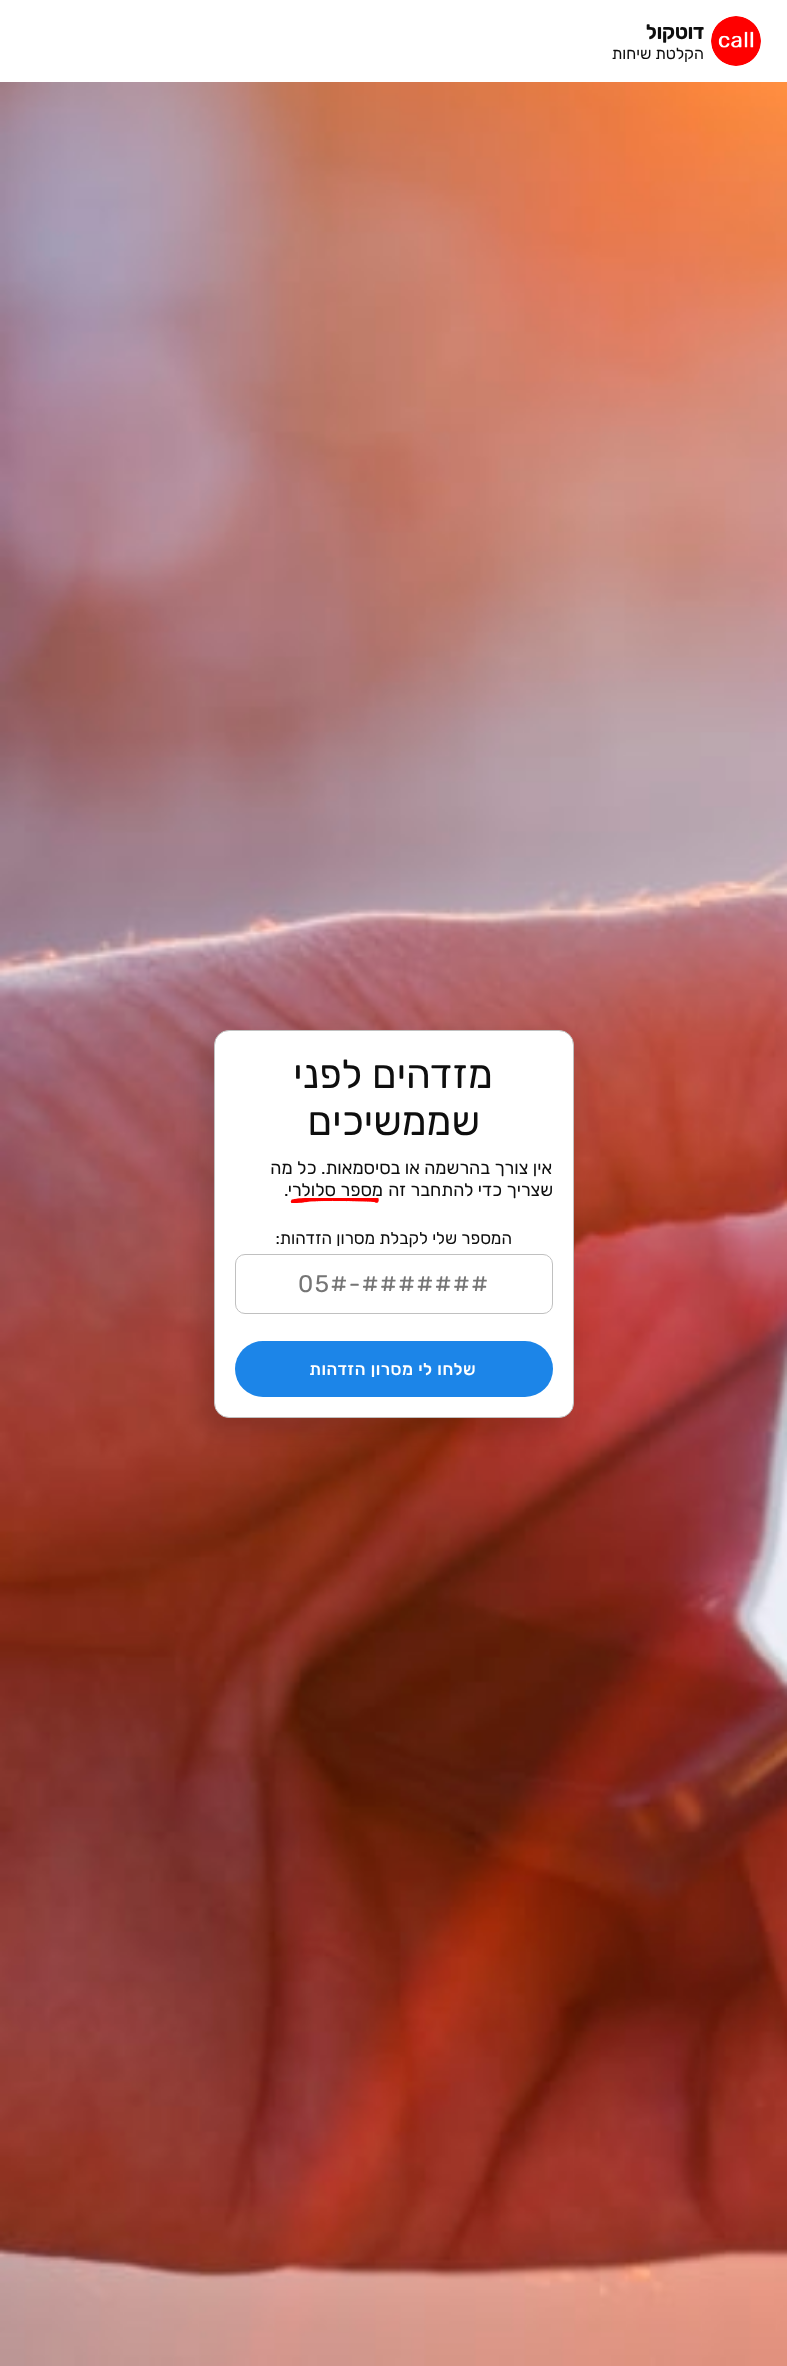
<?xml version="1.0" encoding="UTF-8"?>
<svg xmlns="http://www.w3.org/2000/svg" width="787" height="2366">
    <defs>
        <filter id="blur1" x="-50%" y="-200%" width="200%" height="500%"><feGaussianBlur stdDeviation="10"/></filter>
    </defs>
    <rect width="100%" height="100%" fill="#FFFFFF"/>
    <image x="711" y="16" width="50" height="50" href="img_01.png"/>
    <text x="704" y="39" font-family="Rubik" font-size="20" font-weight="700" direction="rtl" fill="#0E0E0E">דוטקול</text>
    <text x="704" y="59" font-family="Rubik" font-size="16" direction="rtl" fill="#0E0E0E">הקלטת שיחות</text>
    <image x="0" y="82" width="787" height="2284" href="img_02.png"/>
    <rect x="199" y="1035" width="370" height="398" rx="20" fill="#000000" fill-opacity="0.12" filter="url(#blur1)"/>
    <rect x="214.5" y="1030.5" width="359" height="387" rx="14.5" fill="#FFFFFF" stroke="#C0C0C0"/>
    <text x="493" y="1088" font-family="Rubik" font-size="40" direction="rtl" fill="#0E0E0E">מזדהים לפני</text>
    <text x="480" y="1135" font-family="Rubik" font-size="40" direction="rtl" fill="#0E0E0E">שממשיכים</text>
    <text x="552" y="1174" font-family="Rubik" font-size="18" direction="rtl" fill="#0E0E0E">אין צורך בהרשמה או בסיסמאות. כל מה</text>
    <text x="553" y="1196" font-family="Rubik" font-size="18" direction="rtl" fill="#0E0E0E">שצריך כדי להתחבר זה</text>
    <text x="383" y="1196" font-family="Rubik" font-size="18" direction="rtl" fill="#0E0E0E">מספר סלולרי</text>
    <image x="290" y="1198" width="89" height="5" href="img_03.png"/>
    <text x="284" y="1196" font-family="Rubik" font-size="18" fill="#0E0E0E">.</text>
    <text x="512" y="1244" font-family="Rubik" font-size="17" direction="rtl" fill="#0E0E0E">המספר שלי לקבלת מסרון הזדהות:</text>
    <rect x="235.5" y="1254.5" width="317" height="59" rx="9.5" fill="none" stroke="#C0C0C0"/>
    <text x="298" y="1292" font-family="Rubik" font-size="24" letter-spacing="1.5" fill="#757575">05#-#######</text>
    <rect x="235" y="1341" width="318" height="56" rx="28" fill="#1C85E8"/>
    <text x="476" y="1375" font-family="Rubik" font-size="17" font-weight="500" letter-spacing="0.5" direction="rtl" fill="#FFFFFF">שלחו לי מסרון הזדהות</text>
</svg>
